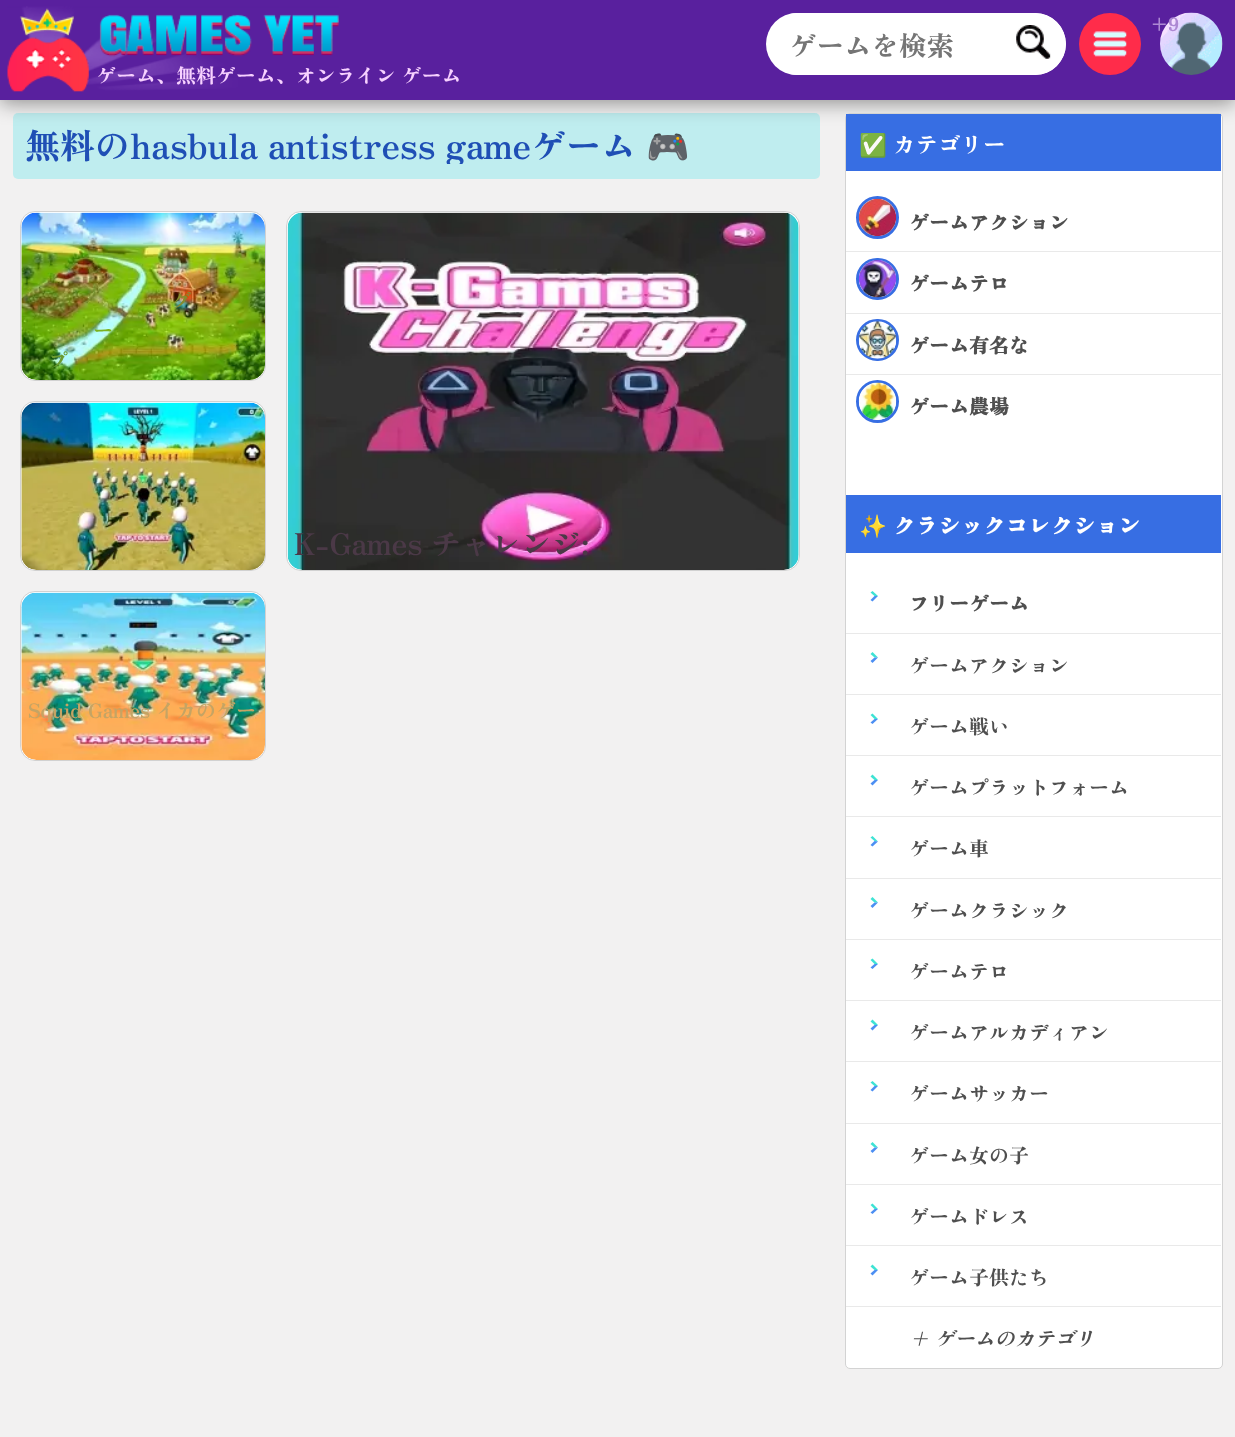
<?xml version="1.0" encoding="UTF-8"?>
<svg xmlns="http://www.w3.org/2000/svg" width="1235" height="1437">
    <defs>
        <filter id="blur1" x="-50%" y="-200%" width="200%" height="500%"><feGaussianBlur stdDeviation="9.5"/></filter>
        <clipPath id="clip1"><rect x="766" y="13" width="300" height="62" rx="31"/></clipPath>
        <clipPath id="clip2"><rect x="25" y="124" width="783" height="40"/></clipPath>
    </defs>
    <rect width="100%" height="100%" fill="#F2F1F1"/>
    <rect x="13" y="113" width="807" height="66" rx="5" fill="#BFEDEF"/>
    <rect x="0" y="4" width="1235" height="100" fill="#000000" fill-opacity="0.39" filter="url(#blur1)"/>
    <rect x="0" y="0" width="1235" height="100" fill="#59209E"/>
    <image x="7" y="6" width="332" height="86" href="img_01.png"/>
    <circle cx="1110" cy="44" r="31" fill="#FF2C4A"/>
    <image x="1093" y="31" width="34" height="26" href="img_02.png"/>
    <image x="1160" y="12" width="63" height="63" href="img_03.png"/>
    <text x="1150" y="31" font-family="Zen Antique" font-size="18" font-weight="700" fill="#AD89D3">+9</text>
    <rect x="766" y="13" width="300" height="62" rx="31" fill="#FFFFFF"/>
    <g clip-path="url(#clip1)">
        <path d="M 794 13 H 1035 C 1052 13 1066 27 1066 44 C 1066 61 1052 75 1035 75 H 794 C 791 75 789 73 789 70 V 18 C 789 15 791 13 794 13 Z" fill="#FFFFFF"/>
    </g>
    <text x="789" y="56" font-family="Zen Antique" font-size="27.5" fill="#757575">ゲームを検索</text>
    <image x="1016" y="25" width="35" height="34" href="img_04.png"/>
    <text x="96" y="83" font-family="Zen Antique" font-size="20" fill="#F7D1FF">ゲーム、無料ゲーム、オンライン ゲーム</text>
    <g clip-path="url(#clip2)">
        <text x="25" y="159" font-family="Zen Antique" font-size="35" fill="#1F4FB5">無料のhasbula antistress gameゲーム</text>
        <text x="646" y="159" font-family="Noto Color Emoji" font-size="35" fill="#1F4FB5">🎮</text>
    </g>
    <rect x="845.5" y="113.5" width="377" height="1255" rx="4.5" fill="#FFFFFF" stroke="#D3D3D3"/>
    <rect x="846" y="114" width="375" height="57" fill="#376EE3"/>
    <text x="859" y="153" font-family="Noto Color Emoji" font-size="22.5" fill="#FFFFFF">✅</text>
    <text x="893" y="153" font-family="Zen Antique" font-size="22.5" fill="#FFFFFF">カテゴリー</text>
    <rect x="846" y="251" width="375" height="1" fill="#E9E9E9"/>
    <circle cx="877.5" cy="217.5" r="20" fill="none" stroke="#376EE3" stroke-width="3"/>
    <image x="858" y="198" width="39" height="39" href="img_05.png"/>
    <text x="909" y="230" font-family="Zen Antique" font-size="20" font-weight="700" fill="#4F4F4F">ゲームアクション</text>
    <rect x="846" y="313" width="375" height="1" fill="#E9E9E9"/>
    <rect x="857.5" y="259.5" width="40" height="39" rx="19.5" fill="none" stroke="#376EE3" stroke-width="3"/>
    <image x="858" y="260" width="39" height="38" href="img_06.png"/>
    <text x="909" y="291" font-family="Zen Antique" font-size="20" font-weight="700" fill="#4F4F4F">ゲームテロ</text>
    <rect x="846" y="374" width="375" height="1" fill="#E9E9E9"/>
    <rect x="857.5" y="320.5" width="40" height="39" rx="19.5" fill="none" stroke="#376EE3" stroke-width="3"/>
    <image x="858" y="321" width="39" height="38" href="img_07.png"/>
    <text x="909" y="353" font-family="Zen Antique" font-size="20" font-weight="700" fill="#4F4F4F">ゲーム有名な</text>
    <circle cx="877.5" cy="401.5" r="20" fill="none" stroke="#376EE3" stroke-width="3"/>
    <image x="858" y="382" width="39" height="38" href="img_08.png"/>
    <text x="909" y="414" font-family="Zen Antique" font-size="20" font-weight="700" fill="#4F4F4F">ゲーム農場</text>
    <rect x="846" y="495" width="375" height="58" fill="#376EE3"/>
    <text x="859" y="534" font-family="Noto Color Emoji" font-size="22.5" font-weight="700" fill="#FFFFFF">✨</text>
    <text x="893" y="534" font-family="Zen Antique" font-size="22.5" font-weight="700" fill="#FFFFFF">クラシックコレクション</text>
    <rect x="846" y="633" width="375" height="1" fill="#E9E9E9"/>
    <path d="M 872.5 591 L 878 596 H 874.5 L 870.5 592.5 Z" fill="#3EE3D4"/>
    <path d="M 878 596 L 872.5 601.5 L 870.5 600 L 874.5 596 Z" fill="#4C8FF3"/>
    <text x="909" y="611" font-family="Zen Antique" font-size="20" font-weight="700" fill="#4F4F4F">フリーゲーム</text>
    <rect x="846" y="694" width="375" height="1" fill="#E9E9E9"/>
    <path d="M 872.5 652 L 878 657.5 H 874.5 L 870.5 654 Z" fill="#3EE3D4"/>
    <path d="M 878 657.5 L 872.5 663 L 870.5 661 L 874.5 657.5 Z" fill="#4C8FF3"/>
    <text x="909" y="673" font-family="Zen Antique" font-size="20" fill="#4F4F4F">ゲームアクション</text>
    <rect x="846" y="755" width="375" height="1" fill="#E9E9E9"/>
    <path d="M 872.5 713.5 L 878 719 H 874.5 L 870.5 715 Z" fill="#3EE3D4"/>
    <path d="M 878 719 L 872.5 724 L 870.5 722.5 L 874.5 719 Z" fill="#4C8FF3"/>
    <text x="909" y="734" font-family="Zen Antique" font-size="20" fill="#4F4F4F">ゲーム戦い</text>
    <rect x="846" y="816" width="375" height="1" fill="#E9E9E9"/>
    <path d="M 872.5 774.5 L 878 780 H 874.5 L 870.5 776.5 Z" fill="#3EE3D4"/>
    <path d="M 878 780 L 872.5 785.5 L 870.5 783.5 L 874.5 780 Z" fill="#4C8FF3"/>
    <text x="909" y="795" font-family="Zen Antique" font-size="20" fill="#4F4F4F">ゲームプラットフォーム</text>
    <rect x="846" y="878" width="375" height="1" fill="#E9E9E9"/>
    <path d="M 872.5 836 L 878 841.5 L 874.5 841 L 870.5 837.5 Z" fill="#3EE3D4"/>
    <path d="M 878 841.5 L 872.5 846.5 L 870.5 845 L 874.5 841 Z" fill="#4C8FF3"/>
    <text x="909" y="856" font-family="Zen Antique" font-size="20" fill="#4F4F4F">ゲーム車</text>
    <rect x="846" y="939" width="375" height="1" fill="#E9E9E9"/>
    <path d="M 872.5 897 L 878 902.5 H 874.5 L 870.5 899 Z" fill="#3EE3D4"/>
    <path d="M 878 902.5 L 872.5 908 L 870.5 906 L 874.5 902.5 Z" fill="#4C8FF3"/>
    <text x="909" y="918" font-family="Zen Antique" font-size="20" fill="#4F4F4F">ゲームクラシック</text>
    <rect x="846" y="1000" width="375" height="1" fill="#E9E9E9"/>
    <path d="M 872.5 958.5 L 878 964 H 874.5 L 870.5 960 Z" fill="#3EE3D4"/>
    <path d="M 878 964 L 872.5 969 L 870.5 967.5 L 874.5 964 Z" fill="#4C8FF3"/>
    <text x="909" y="979" font-family="Zen Antique" font-size="20" fill="#4F4F4F">ゲームテロ</text>
    <rect x="846" y="1061" width="375" height="1" fill="#E9E9E9"/>
    <path d="M 872.5 1019.5 L 878 1025 H 874.5 L 870.5 1021.5 Z" fill="#3EE3D4"/>
    <path d="M 878 1025 L 872.5 1030.5 L 870.5 1028.5 L 874.5 1025 Z" fill="#4C8FF3"/>
    <text x="909" y="1040" font-family="Zen Antique" font-size="20" fill="#4F4F4F">ゲームアルカディアン</text>
    <rect x="846" y="1123" width="375" height="1" fill="#E9E9E9"/>
    <path d="M 872.5 1081 L 878 1086 H 874.5 L 870.5 1082.5 Z" fill="#3EE3D4"/>
    <path d="M 878 1086 L 872.5 1091.5 L 870.5 1090 L 874.5 1086 Z" fill="#4C8FF3"/>
    <text x="909" y="1101" font-family="Zen Antique" font-size="20" fill="#4F4F4F">ゲームサッカー</text>
    <rect x="846" y="1184" width="375" height="1" fill="#E9E9E9"/>
    <path d="M 872.5 1142 L 878 1147.5 H 874.5 L 870.5 1144 Z" fill="#3EE3D4"/>
    <path d="M 878 1147.5 L 872.5 1153 L 870.5 1151 L 874.5 1147.5 Z" fill="#4C8FF3"/>
    <text x="909" y="1163" font-family="Zen Antique" font-size="20" fill="#4F4F4F">ゲーム女の子</text>
    <rect x="846" y="1245" width="375" height="1" fill="#E9E9E9"/>
    <path d="M 872.5 1203.5 L 878 1209 H 874.5 L 870.5 1205 Z" fill="#3EE3D4"/>
    <path d="M 878 1209 L 872.5 1214 L 870.5 1212.5 L 874.5 1209 Z" fill="#4C8FF3"/>
    <text x="909" y="1224" font-family="Zen Antique" font-size="20" fill="#4F4F4F">ゲームドレス</text>
    <rect x="846" y="1306" width="375" height="1" fill="#E9E9E9"/>
    <path d="M 872.5 1264.5 L 878 1270 H 874.5 L 870.5 1266.5 Z" fill="#3EE3D4"/>
    <path d="M 878 1270 L 872.5 1275.5 L 870.5 1273.5 L 874.5 1270 Z" fill="#4C8FF3"/>
    <text x="909" y="1285" font-family="Zen Antique" font-size="20" fill="#4F4F4F">ゲーム子供たち</text>
    <text x="909" y="1346" font-family="Zen Antique" font-size="20" font-style="italic" fill="#4F4F4F">+ ゲームのカテゴリ</text>
    <rect x="20.5" y="211.5" width="245" height="169" rx="14.5" fill="#FFFFFF" stroke="#D1D1D1"/>
    <image x="21" y="212" width="244" height="168" href="img_09.png"/>
    <text x="171" y="308" font-family="Zen Antique" font-size="20" fill="#858B2E">グ</text>
    <text x="93" y="338" font-family="Zen Antique" font-size="20" fill="#7BB21D">ー</text>
    <text x="48" y="368" font-family="Zen Antique" font-size="20" fill="#6B9C30">プ</text>
    <rect x="20.5" y="401.5" width="245" height="169" rx="14.5" fill="#FFFFFF" stroke="#D1D1D1"/>
    <image x="21" y="402" width="244" height="168" href="img_10.png"/>
    <rect x="286.5" y="211.5" width="513" height="359" rx="14.5" fill="#FFFFFF" stroke="#D1D1D1"/>
    <image x="287" y="212" width="512" height="358" href="img_11.png"/>
    <text x="294" y="555" font-family="Zen Antique" font-size="30" fill="#4B3947">K-Games チャレンジ:</text>
    <rect x="20.5" y="591.5" width="245" height="169" rx="14.5" fill="#FFFFFF" stroke="#D1D1D1"/>
    <image x="21" y="592" width="244" height="168" href="img_12.png"/>
    <text x="28" y="718" font-family="Zen Antique" font-size="20" fill="#C5A464">Squid Games イカのゲー</text>
</svg>
